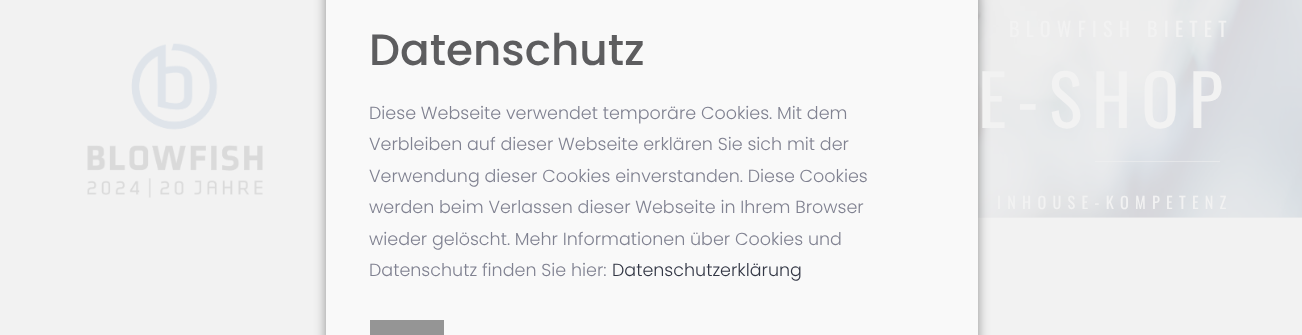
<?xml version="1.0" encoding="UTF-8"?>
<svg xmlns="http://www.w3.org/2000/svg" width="1302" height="335">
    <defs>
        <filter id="blur1" x="-50%" y="-200%" width="200%" height="500%"><feGaussianBlur stdDeviation="6"/></filter>
    </defs>
    <rect width="100%" height="100%" fill="#F2F2F2"/>
    <rect x="978" y="217" width="324" height="1" fill="#EFEFEF"/>
    <image x="87" y="43" width="176" height="155" href="img_01.png"/>
    <image x="978" y="0" width="324" height="218" href="img_02.png"/>
    <rect x="326" y="-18" width="652" height="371" fill="#000000" fill-opacity="0.4" filter="url(#blur1)"/>
    <rect x="326" y="0" width="652" height="335" fill="#F9F9F9"/>
    <text x="369" y="65" font-family="Poppins" font-size="43.75" font-weight="500" fill="#5D5D5F">Datenschutz</text>
    <text font-family="Poppins" font-size="17.5" font-weight="300" fill="#808291">
        <tspan x="369" y="119">Diese Webseite verwendet temporäre Cookies. Mit dem</tspan>
        <tspan x="369" y="150">Verbleiben auf dieser Webseite erklären Sie sich mit der</tspan>
        <tspan x="369" y="182">Verwendung dieser Cookies einverstanden. Diese Cookies</tspan>
        <tspan x="369" y="213">werden beim Verlassen dieser Webseite in Ihrem Browser</tspan>
        <tspan x="369" y="245">wieder gelöscht. Mehr Informationen über Cookies und</tspan>
        <tspan x="369" y="276">Datenschutz finden Sie hier:</tspan>
    </text>
    <text x="612" y="276" font-family="Poppins" font-size="17.5" font-weight="300" fill="#333745">Datenschutzerklärung</text>
    <rect x="370" y="320" width="74" height="15" fill="#959595"/>
    <text x="1009" y="37" font-family="Oswald" font-size="20" letter-spacing="6.25" fill="#F2F2F2">BLOWFISH BIETET</text>
    <text x="978" y="128" font-family="Oswald" font-size="70" letter-spacing="10" fill="#F2F2F2">E-SHOP</text>
    <rect x="1095" y="161" width="125" height="1" fill="#F2F2F2" fill-opacity="0.5"/>
    <text x="997" y="209" font-family="Oswald" font-size="16.25" letter-spacing="6.25" fill="#F2F2F2">INHOUSE-KOMPETENZ</text>
</svg>
